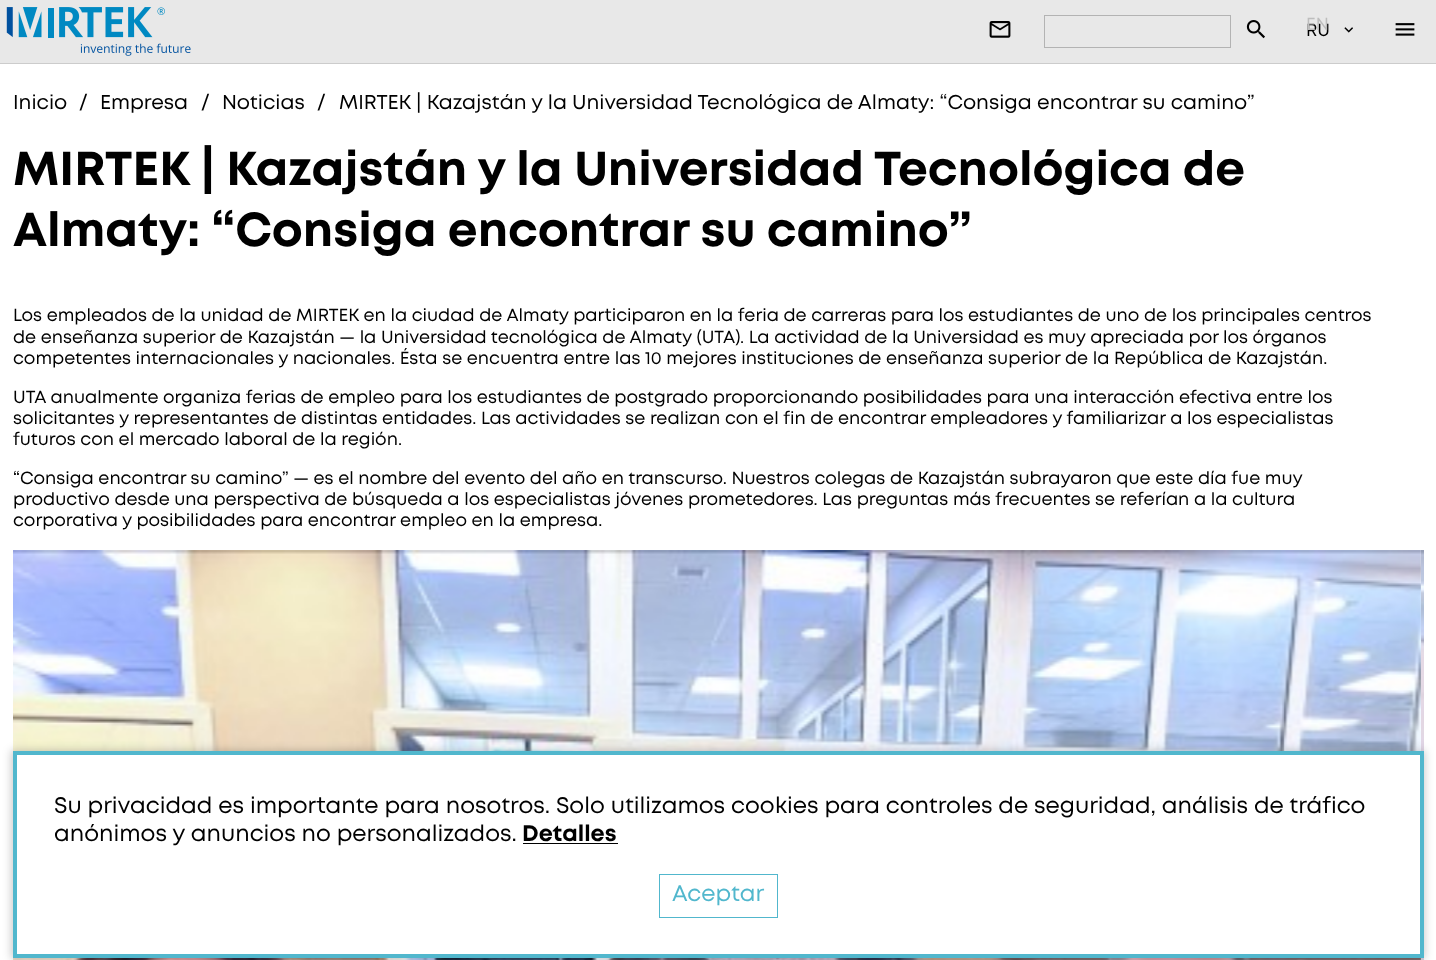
<?xml version="1.0" encoding="UTF-8"?>
<svg xmlns="http://www.w3.org/2000/svg" width="1436" height="960">
    <defs>
        <filter id="blur1" x="-50%" y="-200%" width="200%" height="500%"><feGaussianBlur stdDeviation="4"/></filter>
    </defs>
    <rect width="100%" height="100%" fill="#FFFFFF"/>
    <rect x="0" y="0" width="1436" height="63" fill="#E8E8E8"/>
    <rect x="0" y="63" width="1436" height="1" fill="#CCCCCC"/>
    <image x="6" y="7" width="185" height="49" href="img_01.png"/>
    <image x="989" y="21" width="22" height="17" href="img_02.png"/>
    <rect x="1044.5" y="15.5" width="186" height="32" fill="none" stroke="#B3B3B3"/>
    <image x="1246" y="20" width="19" height="19" href="img_03.png"/>
    <text x="1306" y="36" font-family="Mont" font-size="17.5" fill="#000000">RU</text>
    <text x="1306" y="30" font-family="Mont" font-size="17.5" fill="#BDBDBD">EN</text>
    <image x="1344" y="27" width="9" height="6" href="img_04.png"/>
    <image x="1395" y="23" width="20" height="13" href="img_05.png"/>
    <text x="13" y="109" font-family="Mont" font-size="20" fill="#000000">Inicio</text>
    <text x="79" y="109" font-family="Mont" font-size="20" fill="#000000">/</text>
    <text x="100" y="109" font-family="Mont" font-size="20" fill="#000000">Empresa</text>
    <text x="201" y="109" font-family="Mont" font-size="20" fill="#000000">/</text>
    <text x="222" y="109" font-family="Mont" font-size="20" fill="#000000">Noticias</text>
    <text x="317" y="109" font-family="Mont" font-size="20" fill="#000000">/</text>
    <text x="339" y="109" font-family="Mont" font-size="20" fill="#000000">MIRTEK | Kazajstán y la Universidad Tecnológica de Almaty: “Consiga encontrar su camino”</text>
    <text font-family="Mont" font-size="47.5" font-weight="700" fill="#000000">
        <tspan x="13" y="185">MIRTEK | Kazajstán y la Universidad Tecnológica de</tspan>
        <tspan x="13" y="246">Almaty: “Consiga encontrar su camino”</tspan>
    </text>
    <text font-family="Mont" font-size="17.5" fill="#000000">
        <tspan x="13" y="321">Los empleados de la unidad de MIRTEK en la ciudad de Almaty participaron en la feria de carreras para los estudiantes de uno de los principales centros</tspan>
        <tspan x="13" y="343">de enseñanza superior de Kazajstán — la Universidad tecnológica de Almaty (UTA). La actividad de la Universidad es muy apreciada por los órganos</tspan>
        <tspan x="13" y="364">competentes internacionales y nacionales. Ésta se encuentra entre las 10 mejores instituciones de enseñanza superior de la República de Kazajstán.</tspan>
    </text>
    <text font-family="Mont" font-size="17.5" fill="#000000">
        <tspan x="13" y="403">UTA anualmente organiza ferias de empleo para los estudiantes de postgrado proporcionando posibilidades para una interacción efectiva entre los</tspan>
        <tspan x="13" y="424">solicitantes y representantes de distintas entidades. Las actividades se realizan con el fin de encontrar empleadores y familiarizar a los especialistas</tspan>
        <tspan x="13" y="445">futuros con el mercado laboral de la región.</tspan>
    </text>
    <text font-family="Mont" font-size="17.5" fill="#000000">
        <tspan x="13" y="484">“Consiga encontrar su camino” — es el nombre del evento del año en transcurso. Nuestros colegas de Kazajstán subrayaron que este día fue muy</tspan>
        <tspan x="13" y="505">productivo desde una perspectiva de búsqueda a los especialistas jóvenes prometedores. Las preguntas más frecuentes se referían a la cultura</tspan>
        <tspan x="13" y="526">corporativa y posibilidades para encontrar empleo en la empresa.</tspan>
    </text>
    <image x="13" y="550" width="1408" height="410" href="img_06.png"/>
    <image x="1421" y="550" width="3" height="410" href="img_07.png"/>
    <rect x="11" y="750" width="1414" height="209" fill="#000000" fill-opacity="0.2" filter="url(#blur1)"/>
    <rect x="15" y="753" width="1407" height="203" fill="#FFFFFF" stroke="#51B7CD" stroke-width="4"/>
    <text font-family="Mont" font-size="22.5" fill="#000000">
        <tspan x="54" y="813">Su privacidad es importante para nosotros. Solo utilizamos cookies para controles de seguridad, análisis de tráfico</tspan>
        <tspan x="54" y="841">anónimos y anuncios no personalizados.</tspan>
    </text>
    <text x="522" y="841" font-family="Mont" font-size="22.5" font-weight="700" fill="#000000">Detalles</text>
    <rect x="523" y="843" width="95" height="1" fill="#000000"/>
    <rect x="659.5" y="874.5" width="118" height="43" fill="none" stroke="#51B7CD"/>
    <text x="672" y="901" font-family="Mont" font-size="22.5" fill="#51B7CD">Aceptar</text>
</svg>
